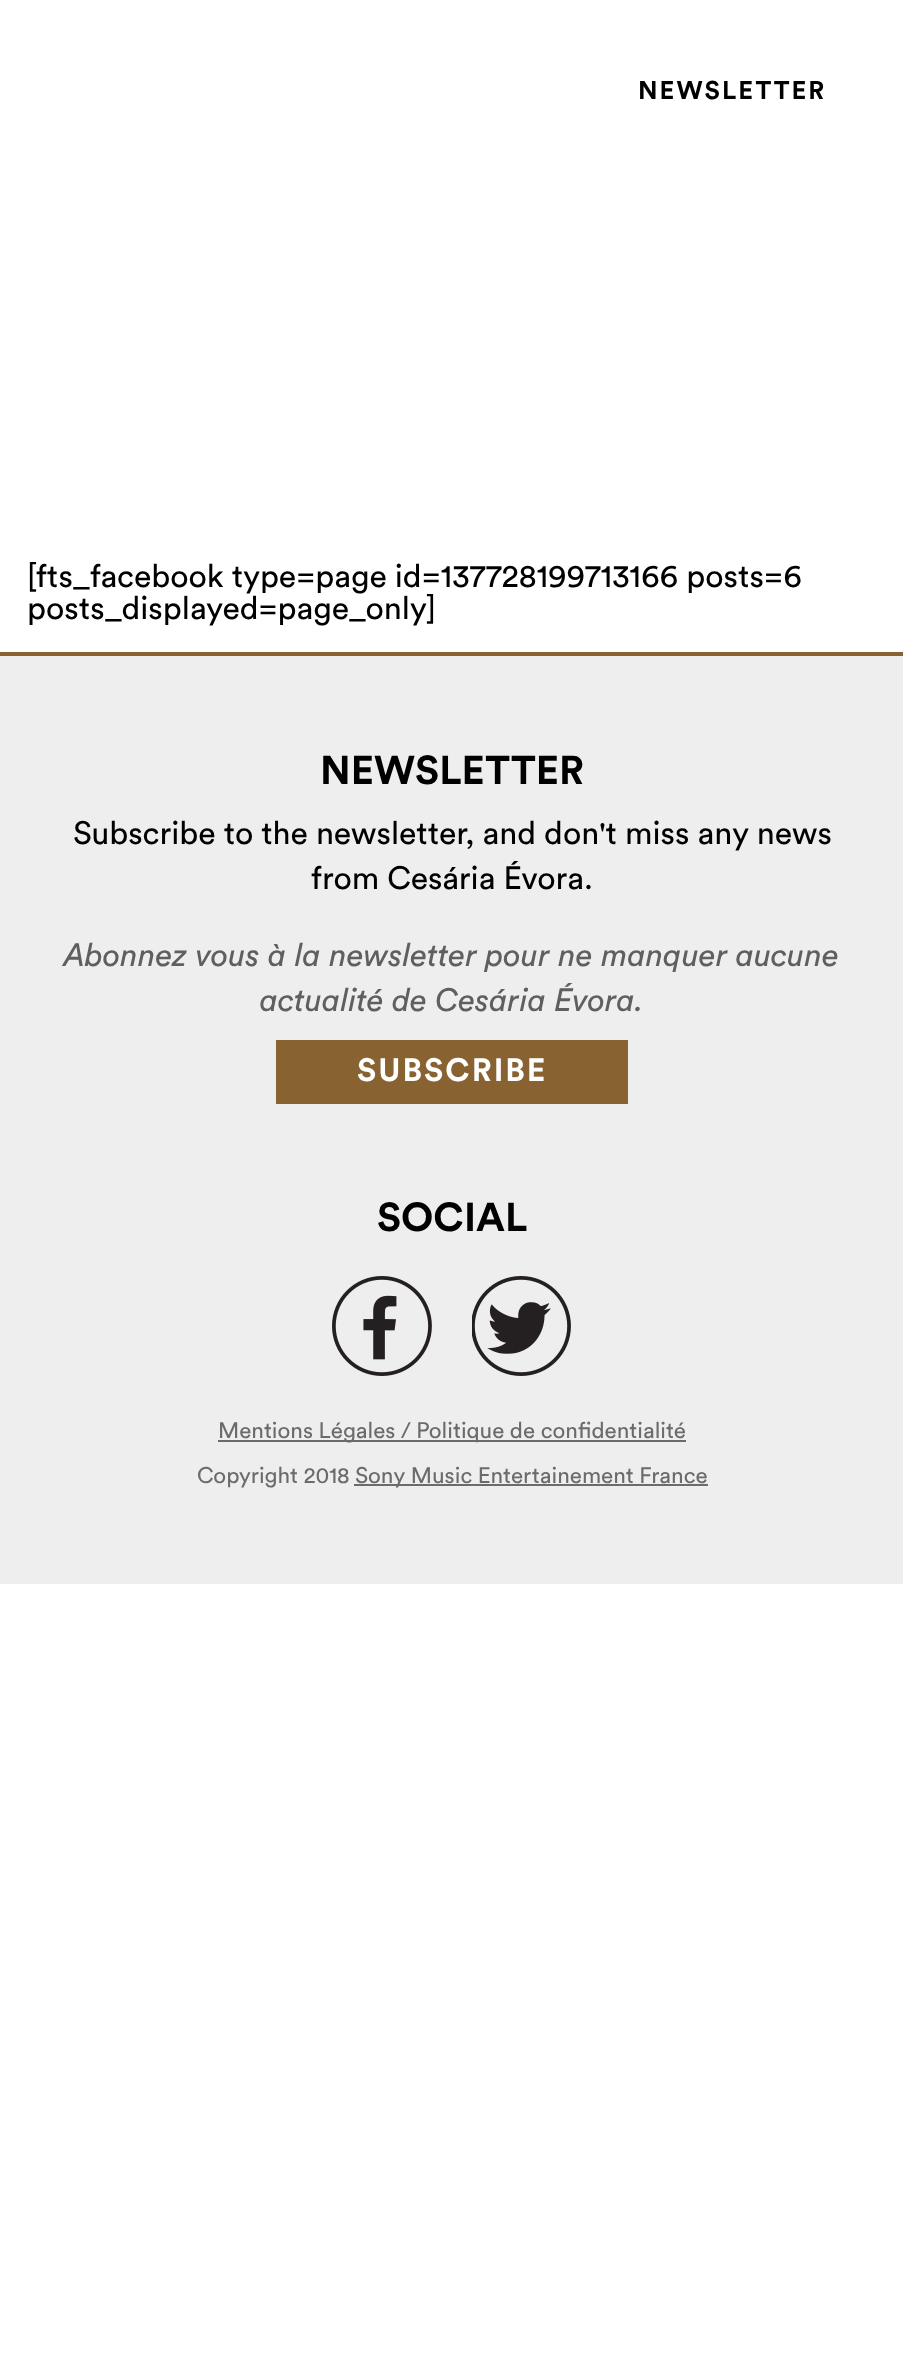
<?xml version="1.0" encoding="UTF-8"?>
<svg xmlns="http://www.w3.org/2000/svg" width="903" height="2364">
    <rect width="100%" height="100%" fill="#FFFFFF"/>
    <text x="638" y="99" font-family="Circular" font-size="25.5" font-weight="700" letter-spacing="2" fill="#000000">NEWSLETTER</text>
    <text font-family="Circular" font-size="32" fill="#000000">
        <tspan x="27" y="587">[fts_facebook type=page id=137728199713166 posts=6</tspan>
        <tspan x="27" y="619">posts_displayed=page_only]</tspan>
    </text>
    <rect x="0" y="656" width="903" height="928" fill="#EEEEEE"/>
    <rect x="0" y="652" width="903" height="4" fill="#886230"/>
    <text x="320" y="784" font-family="Circular" font-size="40" font-weight="700" fill="#000000">NEWSLETTER</text>
    <text x="73" y="844" font-family="Circular" font-size="32" fill="#000000">Subscribe to the newsletter, and don't miss any news</text>
    <text x="311" y="889" font-family="Circular" font-size="32" fill="#000000">from Cesária Évora.</text>
    <text x="64" y="966" font-family="Circular" font-size="32" font-style="italic" fill="#5F5F5F">Abonnez vous à la newsletter pour ne manquer aucune</text>
    <text x="260" y="1011" font-family="Circular" font-size="32" font-style="italic" fill="#5F5F5F">actualité de Cesária Évora.</text>
    <rect x="276" y="1040" width="352" height="64" fill="#886230"/>
    <text x="357" y="1081" font-family="Circular" font-size="32" font-weight="700" letter-spacing="2" fill="#FFFFFF">SUBSCRIBE</text>
    <text x="377" y="1231" font-family="Circular" font-size="40" font-weight="700" fill="#000000">SOCIAL</text>
    <image x="332" y="1276" width="100" height="100" href="img_01.png"/>
    <image x="472" y="1276" width="99" height="100" href="img_02.png"/>
    <rect x="218" y="1440" width="468" height="2" fill="#6B6B6B"/>
    <text x="218" y="1438" font-family="Circular" font-size="22.4" fill="#6B6B6B">Mentions Légales / Politique de confidentialité</text>
    <text x="197" y="1483" font-family="Circular" font-size="22.4" fill="#6B6B6B">Copyright 2018</text>
    <rect x="354" y="1484" width="354" height="2" fill="#6B6B6B"/>
    <text x="355" y="1483" font-family="Circular" font-size="22.4" fill="#6B6B6B">Sony Music Entertainement France</text>
</svg>
